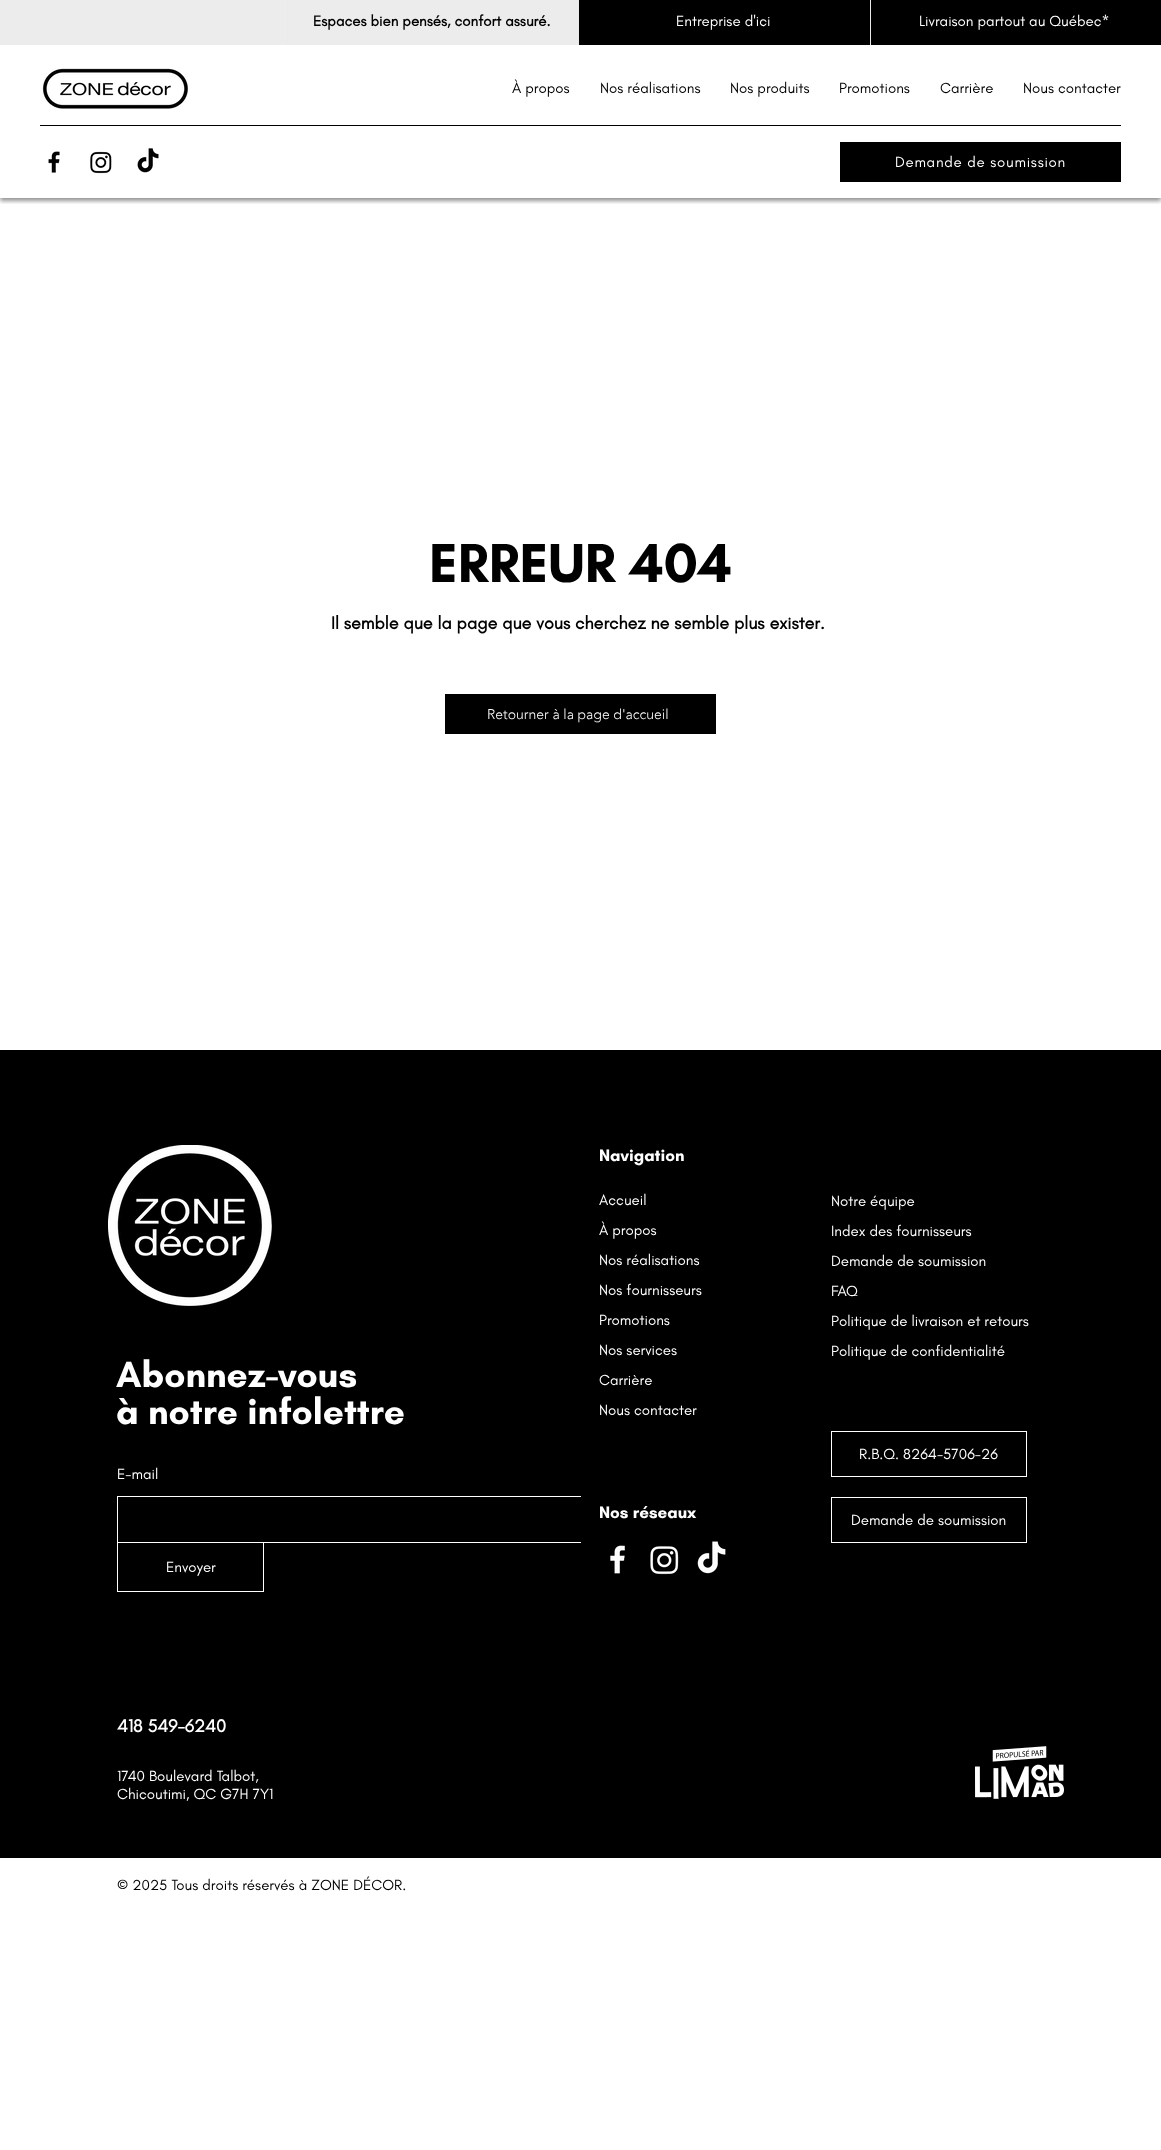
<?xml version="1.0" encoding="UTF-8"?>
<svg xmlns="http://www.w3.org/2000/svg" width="1161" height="2150">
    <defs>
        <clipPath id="clip1"><rect x="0" y="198" width="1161" height="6"/></clipPath>
        <filter id="blur1" x="-50%" y="-200%" width="200%" height="500%"><feGaussianBlur stdDeviation="2"/></filter>
    </defs>
    <rect width="100%" height="100%" fill="#FFFFFF"/>
    <rect x="287" y="0" width="584" height="45" fill="#EAEAEA"/>
    <rect x="0" y="0" width="287" height="45" fill="#EDECEC"/>
    <rect x="288" y="0" width="290" height="45" fill="#EDECEC"/>
    <text x="313" y="26" font-family="'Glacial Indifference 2'" font-size="15" font-weight="700" fill="#000000">Espaces bien pensés, confort assuré.</text>
    <rect x="579" y="0" width="291" height="45" fill="#000000"/>
    <text x="676" y="26" font-family="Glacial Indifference" font-size="15" fill="#FFFFFF">Entreprise d'ici</text>
    <rect x="871" y="0" width="290" height="45" fill="#000000"/>
    <text x="919" y="26" font-family="Glacial Indifference" font-size="15" fill="#FFFFFF">Livraison partout au Québec*</text>
    <g clip-path="url(#clip1)">
        <rect x="0" y="48" width="1161" height="153" fill="#000000" fill-opacity="0.42" filter="url(#blur1)"/>
    </g>
    <image x="42" y="68" width="146" height="41" href="img_01.png"/>
    <image x="48" y="151" width="12" height="22" href="img_02.png"/>
    <image x="90" y="151" width="22" height="23" href="img_03.png"/>
    <image x="137" y="148" width="22" height="25" href="img_04.png"/>
    <text x="512" y="93" font-family="Glacial Indifference" font-size="15" fill="#000000">À propos</text>
    <text x="600" y="93" font-family="Glacial Indifference" font-size="15" fill="#000000">Nos réalisations</text>
    <text x="730" y="93" font-family="Glacial Indifference" font-size="15" fill="#000000">Nos produits</text>
    <text x="839" y="93" font-family="Glacial Indifference" font-size="15" fill="#000000">Promotions</text>
    <text x="940" y="93" font-family="Glacial Indifference" font-size="15" fill="#000000">Carrière</text>
    <text x="1023" y="93" font-family="Glacial Indifference" font-size="15" fill="#000000">Nous contacter</text>
    <rect x="840" y="142" width="281" height="40" fill="#000000"/>
    <text x="895" y="167" font-family="Glacial Indifference" font-size="15" letter-spacing="0.75" fill="#FFFFFF">Demande de soumission</text>
    <rect x="40" y="125" width="1081" height="1" fill="#000000"/>
    <text x="429" y="582" font-family="Glacial Indifference" font-size="56" font-weight="700" fill="#000000">ERREUR 404</text>
    <text x="331" y="629" font-family="'Glacial Indifference 2'" font-size="18" font-weight="700" fill="#000000">Il semble que la page que vous cherchez ne semble plus exister.</text>
    <rect x="445" y="694" width="271" height="40" fill="#000000"/>
    <text x="487" y="719" font-family="'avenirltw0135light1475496'" font-size="14" font-weight="300" fill="#FFFFFF">Retourner à la page d'accueil</text>
    <rect x="0" y="1050" width="581" height="808" fill="#000000"/>
    <image x="108" y="1145" width="164" height="161" href="img_05.png"/>
    <text font-family="Glacial Indifference" font-size="37" font-weight="700" fill="#FFFFFF">
        <tspan x="116" y="1387">Abonnez-vous</tspan>
        <tspan x="116" y="1424">à notre infolettre</tspan>
    </text>
    <text x="117" y="1479" font-family="Glacial Indifference" font-size="15" fill="#FFFFFF">E-mail</text>
    <rect x="117.5" y="1496.5" width="509" height="46" fill="none" stroke="#FFFFFF"/>
    <rect x="117.5" y="1542.5" width="146" height="49" fill="none" stroke="#FFFFFF"/>
    <text x="166" y="1572" font-family="Glacial Indifference" font-size="15" fill="#FFFFFF">Envoyer</text>
    <rect x="581" y="1050" width="580" height="808" fill="#000000"/>
    <text x="599" y="1161" font-family="Glacial Indifference" font-size="17" font-weight="700" fill="#FFFFFF">Navigation</text>
    <text x="599" y="1205" font-family="Glacial Indifference" font-size="15" fill="#FFFFFF">Accueil</text>
    <text x="599" y="1235" font-family="Glacial Indifference" font-size="15" fill="#FFFFFF">À propos</text>
    <text x="599" y="1265" font-family="Glacial Indifference" font-size="15" fill="#FFFFFF">Nos réalisations</text>
    <text x="599" y="1295" font-family="Glacial Indifference" font-size="15" fill="#FFFFFF">Nos fournisseurs</text>
    <text x="599" y="1325" font-family="Glacial Indifference" font-size="15" fill="#FFFFFF">Promotions</text>
    <text x="599" y="1355" font-family="Glacial Indifference" font-size="15" fill="#FFFFFF">Nos services</text>
    <text x="599" y="1385" font-family="Glacial Indifference" font-size="15" fill="#FFFFFF">Carrière</text>
    <text x="599" y="1415" font-family="Glacial Indifference" font-size="15" fill="#FFFFFF">Nous contacter</text>
    <text x="599" y="1518" font-family="Glacial Indifference" font-size="17" font-weight="700" fill="#FFFFFF">Nos réseaux</text>
    <image x="610" y="1545" width="15" height="29" href="img_06.png"/>
    <image x="650" y="1546" width="29" height="29" href="img_07.png"/>
    <image x="697" y="1541" width="29" height="33" href="img_08.png"/>
    <text x="831" y="1206" font-family="Glacial Indifference" font-size="15" fill="#FFFFFF">Notre équipe</text>
    <text x="831" y="1236" font-family="Glacial Indifference" font-size="15" fill="#FFFFFF">Index des fournisseurs</text>
    <text x="831" y="1266" font-family="Glacial Indifference" font-size="15" fill="#FFFFFF">Demande de soumission</text>
    <text x="831" y="1296" font-family="Glacial Indifference" font-size="15" fill="#FFFFFF">FAQ</text>
    <text x="831" y="1326" font-family="Glacial Indifference" font-size="15" fill="#FFFFFF">Politique de livraison et retours</text>
    <text x="831" y="1356" font-family="Glacial Indifference" font-size="15" fill="#FFFFFF">Politique de confidentialité</text>
    <rect x="831.5" y="1431.5" width="195" height="45" fill="none" stroke="#FFFFFF"/>
    <text x="859" y="1459" font-family="Glacial Indifference" font-size="15" fill="#FFFFFF">R.B.Q. 8264-5706-26</text>
    <rect x="831.5" y="1497.5" width="195" height="45" fill="none" stroke="#FFFFFF"/>
    <text x="851" y="1525" font-family="Glacial Indifference" font-size="15" fill="#FFFFFF">Demande de soumission</text>
    <text x="117" y="1732" font-family="'Glacial Indifference 2'" font-size="18" font-weight="700" fill="#FFFFFF">418 549-6240</text>
    <text font-family="Glacial Indifference" font-size="15" fill="#FFFFFF">
        <tspan x="117" y="1781">1740 Boulevard Talbot,</tspan>
        <tspan x="117" y="1799">Chicoutimi, QC G7H 7Y1</tspan>
    </text>
    <image x="975" y="1746" width="89" height="53" href="img_09.png"/>
    <text x="117" y="1890" font-family="Glacial Indifference" font-size="15" fill="#000000">© 2025 Tous droits réservés à ZONE DÉCOR.</text>
</svg>
